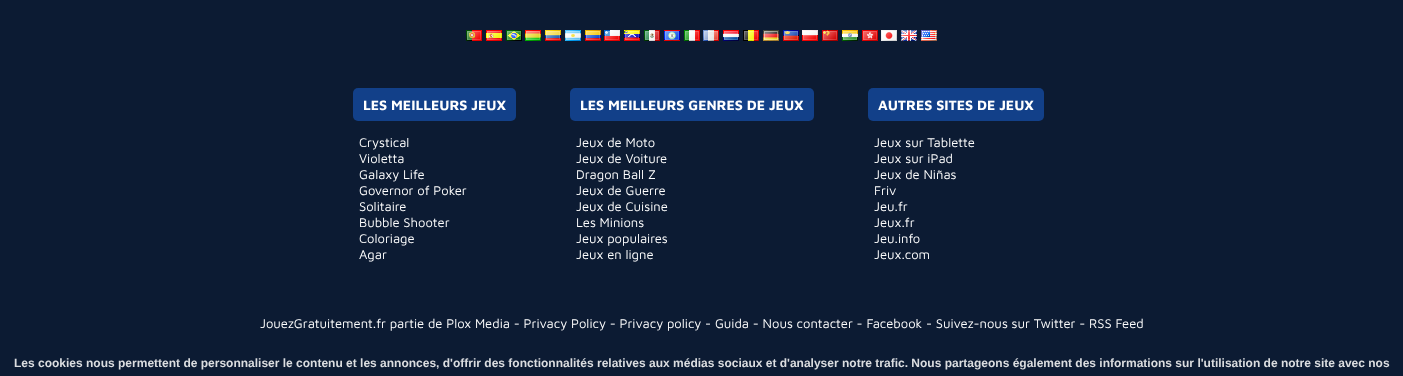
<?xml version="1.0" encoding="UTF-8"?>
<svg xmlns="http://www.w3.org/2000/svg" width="1403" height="376">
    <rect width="100%" height="100%" fill="#0C1B33"/>
    <image x="466" y="30" width="16" height="11" href="img_01.png"/>
    <image x="486" y="30" width="16" height="11" href="img_02.png"/>
    <image x="506" y="30" width="16" height="11" href="img_03.png"/>
    <image x="525" y="30" width="16" height="11" href="img_04.png"/>
    <image x="545" y="30" width="16" height="11" href="img_05.png"/>
    <image x="565" y="30" width="16" height="11" href="img_06.png"/>
    <image x="585" y="30" width="16" height="11" href="img_07.png"/>
    <image x="604" y="30" width="16" height="11" href="img_08.png"/>
    <image x="624" y="30" width="16" height="11" href="img_09.png"/>
    <image x="644" y="30" width="16" height="11" href="img_10.png"/>
    <image x="664" y="30" width="16" height="11" href="img_11.png"/>
    <image x="684" y="30" width="16" height="11" href="img_12.png"/>
    <image x="703" y="30" width="16" height="11" href="img_13.png"/>
    <image x="723" y="30" width="16" height="11" href="img_14.png"/>
    <image x="743" y="30" width="16" height="11" href="img_15.png"/>
    <image x="763" y="30" width="16" height="11" href="img_16.png"/>
    <image x="783" y="30" width="16" height="11" href="img_17.png"/>
    <image x="802" y="30" width="16" height="11" href="img_18.png"/>
    <image x="822" y="30" width="16" height="11" href="img_19.png"/>
    <image x="842" y="30" width="16" height="11" href="img_20.png"/>
    <image x="862" y="30" width="16" height="11" href="img_21.png"/>
    <image x="881" y="30" width="16" height="11" href="img_22.png"/>
    <image x="901" y="30" width="16" height="11" href="img_23.png"/>
    <image x="921" y="30" width="16" height="11" href="img_24.png"/>
    <rect x="353" y="88" width="163" height="33" rx="5" fill="#124089"/>
    <text x="363" y="110" font-family="Maven Pro" font-size="14" font-weight="700" fill="#FFFFFF">LES MEILLEURS JEUX</text>
    <text font-family="Maven Pro" font-size="13" fill="#FFFFFF">
        <tspan x="359" y="147">Crystical</tspan>
        <tspan x="359" y="163">Violetta</tspan>
        <tspan x="359" y="179">Galaxy Life</tspan>
        <tspan x="359" y="195">Governor of Poker</tspan>
        <tspan x="359" y="211">Solitaire</tspan>
        <tspan x="359" y="227">Bubble Shooter</tspan>
        <tspan x="359" y="243">Coloriage</tspan>
        <tspan x="359" y="259">Agar</tspan>
    </text>
    <rect x="570" y="88" width="244" height="33" rx="5" fill="#124089"/>
    <text x="580" y="110" font-family="Maven Pro" font-size="14" font-weight="700" fill="#FFFFFF">LES MEILLEURS GENRES DE JEUX</text>
    <text font-family="Maven Pro" font-size="13" fill="#FFFFFF">
        <tspan x="576" y="147">Jeux de Moto</tspan>
        <tspan x="576" y="163">Jeux de Voiture</tspan>
        <tspan x="576" y="179">Dragon Ball Z</tspan>
        <tspan x="576" y="195">Jeux de Guerre</tspan>
        <tspan x="576" y="211">Jeux de Cuisine</tspan>
        <tspan x="576" y="227">Les Minions</tspan>
        <tspan x="576" y="243">Jeux populaires</tspan>
        <tspan x="576" y="259">Jeux en ligne</tspan>
    </text>
    <rect x="868" y="88" width="176" height="33" rx="5" fill="#124089"/>
    <text x="878" y="110" font-family="Maven Pro" font-size="14" font-weight="700" fill="#FFFFFF">AUTRES SITES DE JEUX</text>
    <text font-family="Maven Pro" font-size="13" fill="#FFFFFF">
        <tspan x="874" y="147">Jeux sur Tablette</tspan>
        <tspan x="874" y="163">Jeux sur iPad</tspan>
        <tspan x="874" y="179">Jeux de Niñas</tspan>
        <tspan x="874" y="195">Friv</tspan>
        <tspan x="874" y="211">Jeu.fr</tspan>
        <tspan x="874" y="227">Jeux.fr</tspan>
        <tspan x="874" y="243">Jeu.info</tspan>
        <tspan x="874" y="259">Jeux.com</tspan>
    </text>
    <text x="260" y="328" font-family="Maven Pro" font-size="13" fill="#FFFFFF">JouezGratuitement.fr partie de Plox Media - Privacy Policy - Privacy policy - Guida - Nous contacter - Facebook - Suivez-nous sur Twitter - RSS Feed</text>
    <text x="14" y="367" font-family="Liberation Sans" font-size="12" font-weight="700" fill="#DBDDE0">Les cookies nous permettent de personnaliser le contenu et les annonces, d'offrir des fonctionnalités relatives aux médias sociaux et d'analyser notre trafic. Nous partageons également des informations sur l'utilisation de notre site avec nos</text>
</svg>
